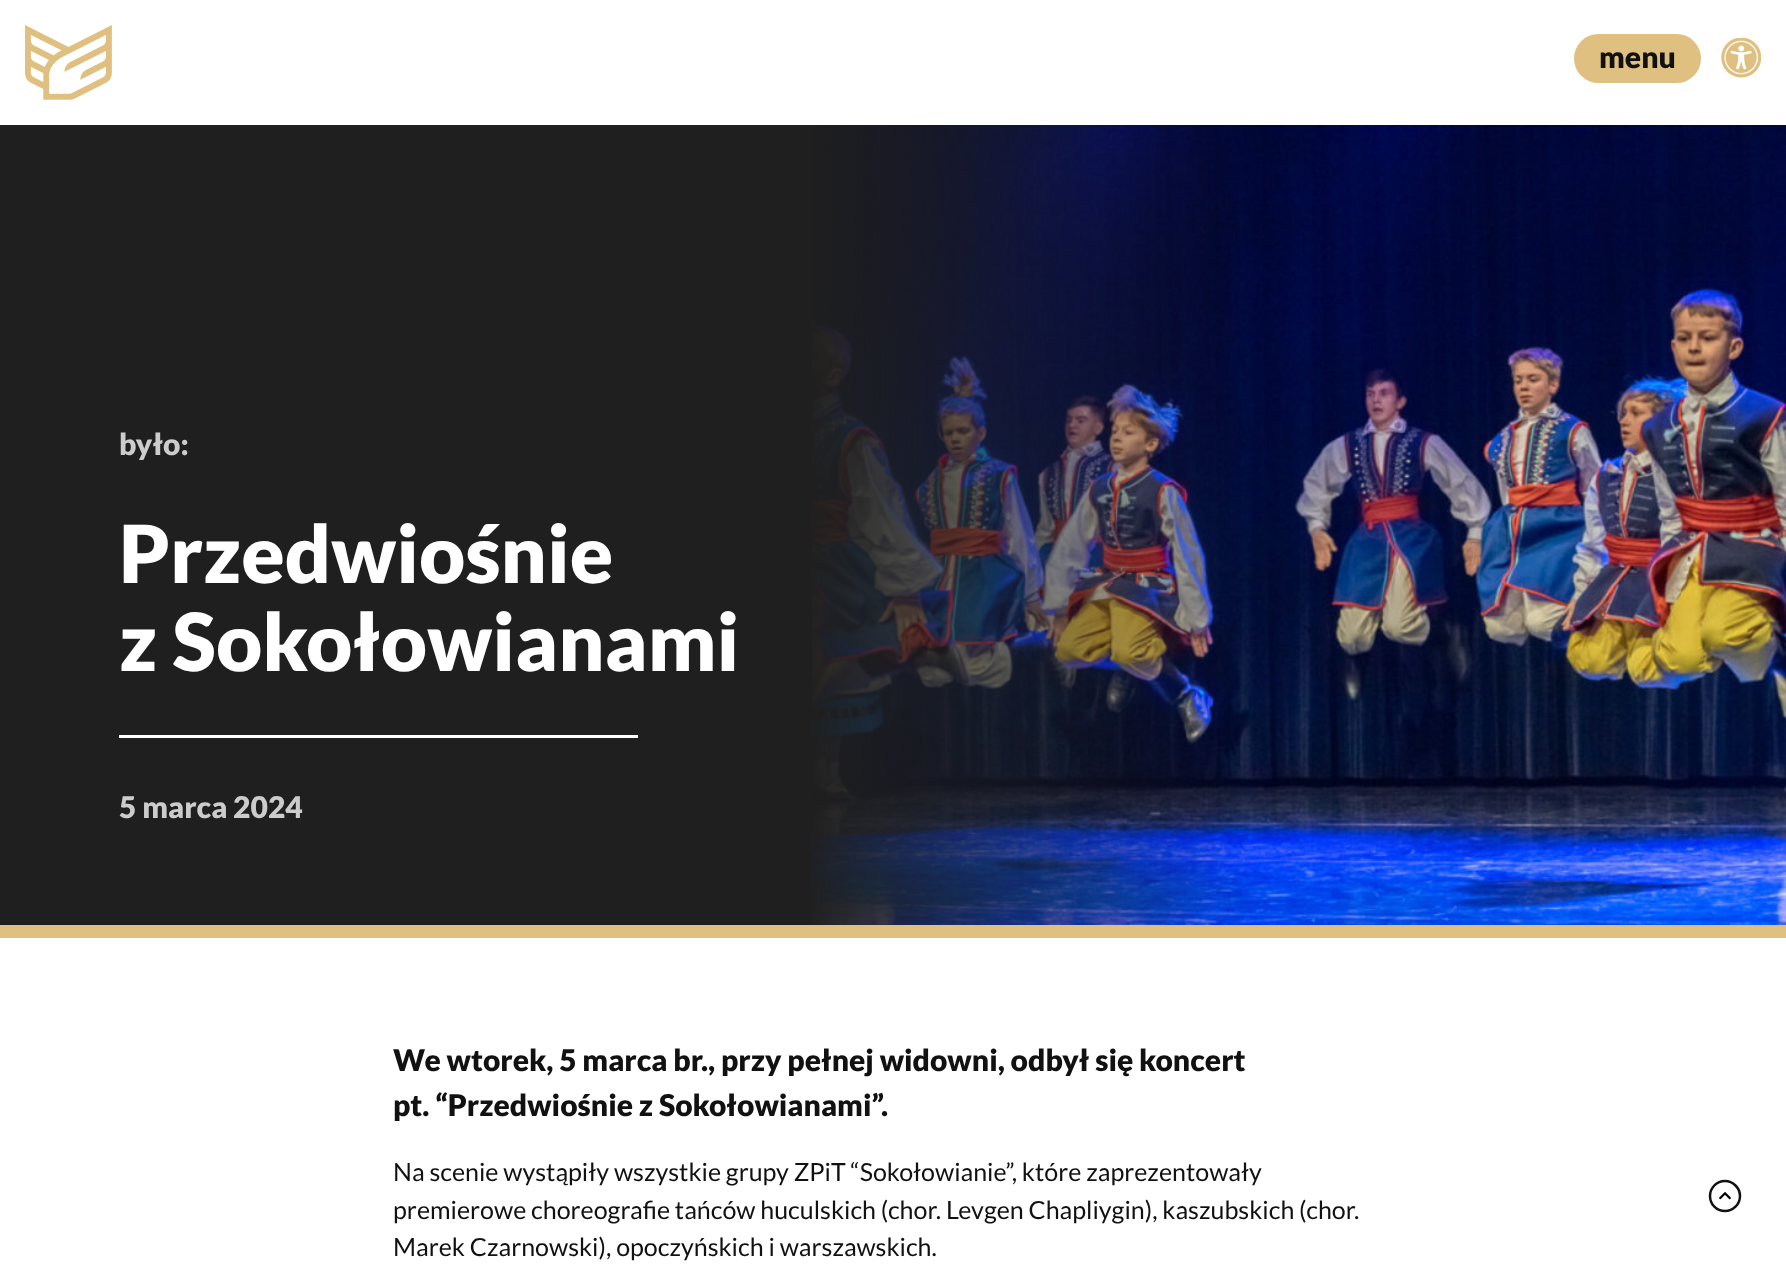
<?xml version="1.0" encoding="UTF-8"?>
<svg xmlns="http://www.w3.org/2000/svg" width="1786" height="1264">
    <rect width="100%" height="100%" fill="#FFFFFF"/>
    <image x="25" y="25" width="87" height="75" href="img_01.png"/>
    <rect x="1574" y="34" width="127" height="49" rx="24.5" fill="#DFC081"/>
    <text x="1599" y="68" font-family="Lato" font-size="30" font-weight="900" fill="#111111">menu</text>
    <image x="1721" y="38" width="40" height="40" href="img_02.png"/>
    <rect x="0" y="125" width="812" height="800" fill="#1F1F1F"/>
    <image x="812" y="125" width="974" height="800" href="img_03.png"/>
    <rect x="0" y="925" width="1786" height="13" fill="#DFC081"/>
    <text x="119" y="455" font-family="Lato" font-size="30" font-weight="900" fill="#CCCCCC">było:</text>
    <text font-family="Lato" font-size="80" font-weight="900" fill="#FFFFFF">
        <tspan x="119" y="583">Przedwiośnie</tspan>
        <tspan x="119" y="671">z Sokołowianami</tspan>
    </text>
    <rect x="119" y="735" width="519" height="3" fill="#FFFFFF"/>
    <text x="119" y="818" font-family="Lato" font-size="30" font-weight="900" fill="#CCCCCC">5 marca 2024</text>
    <text font-family="Lato" font-size="30" font-weight="900" fill="#111111">
        <tspan x="393" y="1071">We wtorek, 5 marca br., przy pełnej widowni, odbył się koncert</tspan>
        <tspan x="393" y="1116">pt. “Przedwiośnie z Sokołowianami”.</tspan>
    </text>
    <text font-family="Lato" font-size="25" fill="#111111">
        <tspan x="393" y="1181">Na scenie wystąpiły wszystkie grupy ZPiT “Sokołowianie”, które zaprezentowały</tspan>
        <tspan x="393" y="1219">premierowe choreografie tańców huculskich (chor. Levgen Chapliygin), kaszubskich (chor.</tspan>
        <tspan x="393" y="1256">Marek Czarnowski), opoczyńskich i warszawskich.</tspan>
    </text>
    <path d="M 1710 1196 C 1710 1188 1716.5 1181 1725 1181 C 1733 1181 1740 1188 1740 1196 C 1740 1204.5 1733 1211 1725 1211 C 1716.5 1211 1710 1204.5 1710 1196 Z" fill="none" stroke="#111111" stroke-width="2.5"/>
    <image x="1719" y="1192" width="12" height="8" href="img_04.png"/>
</svg>
